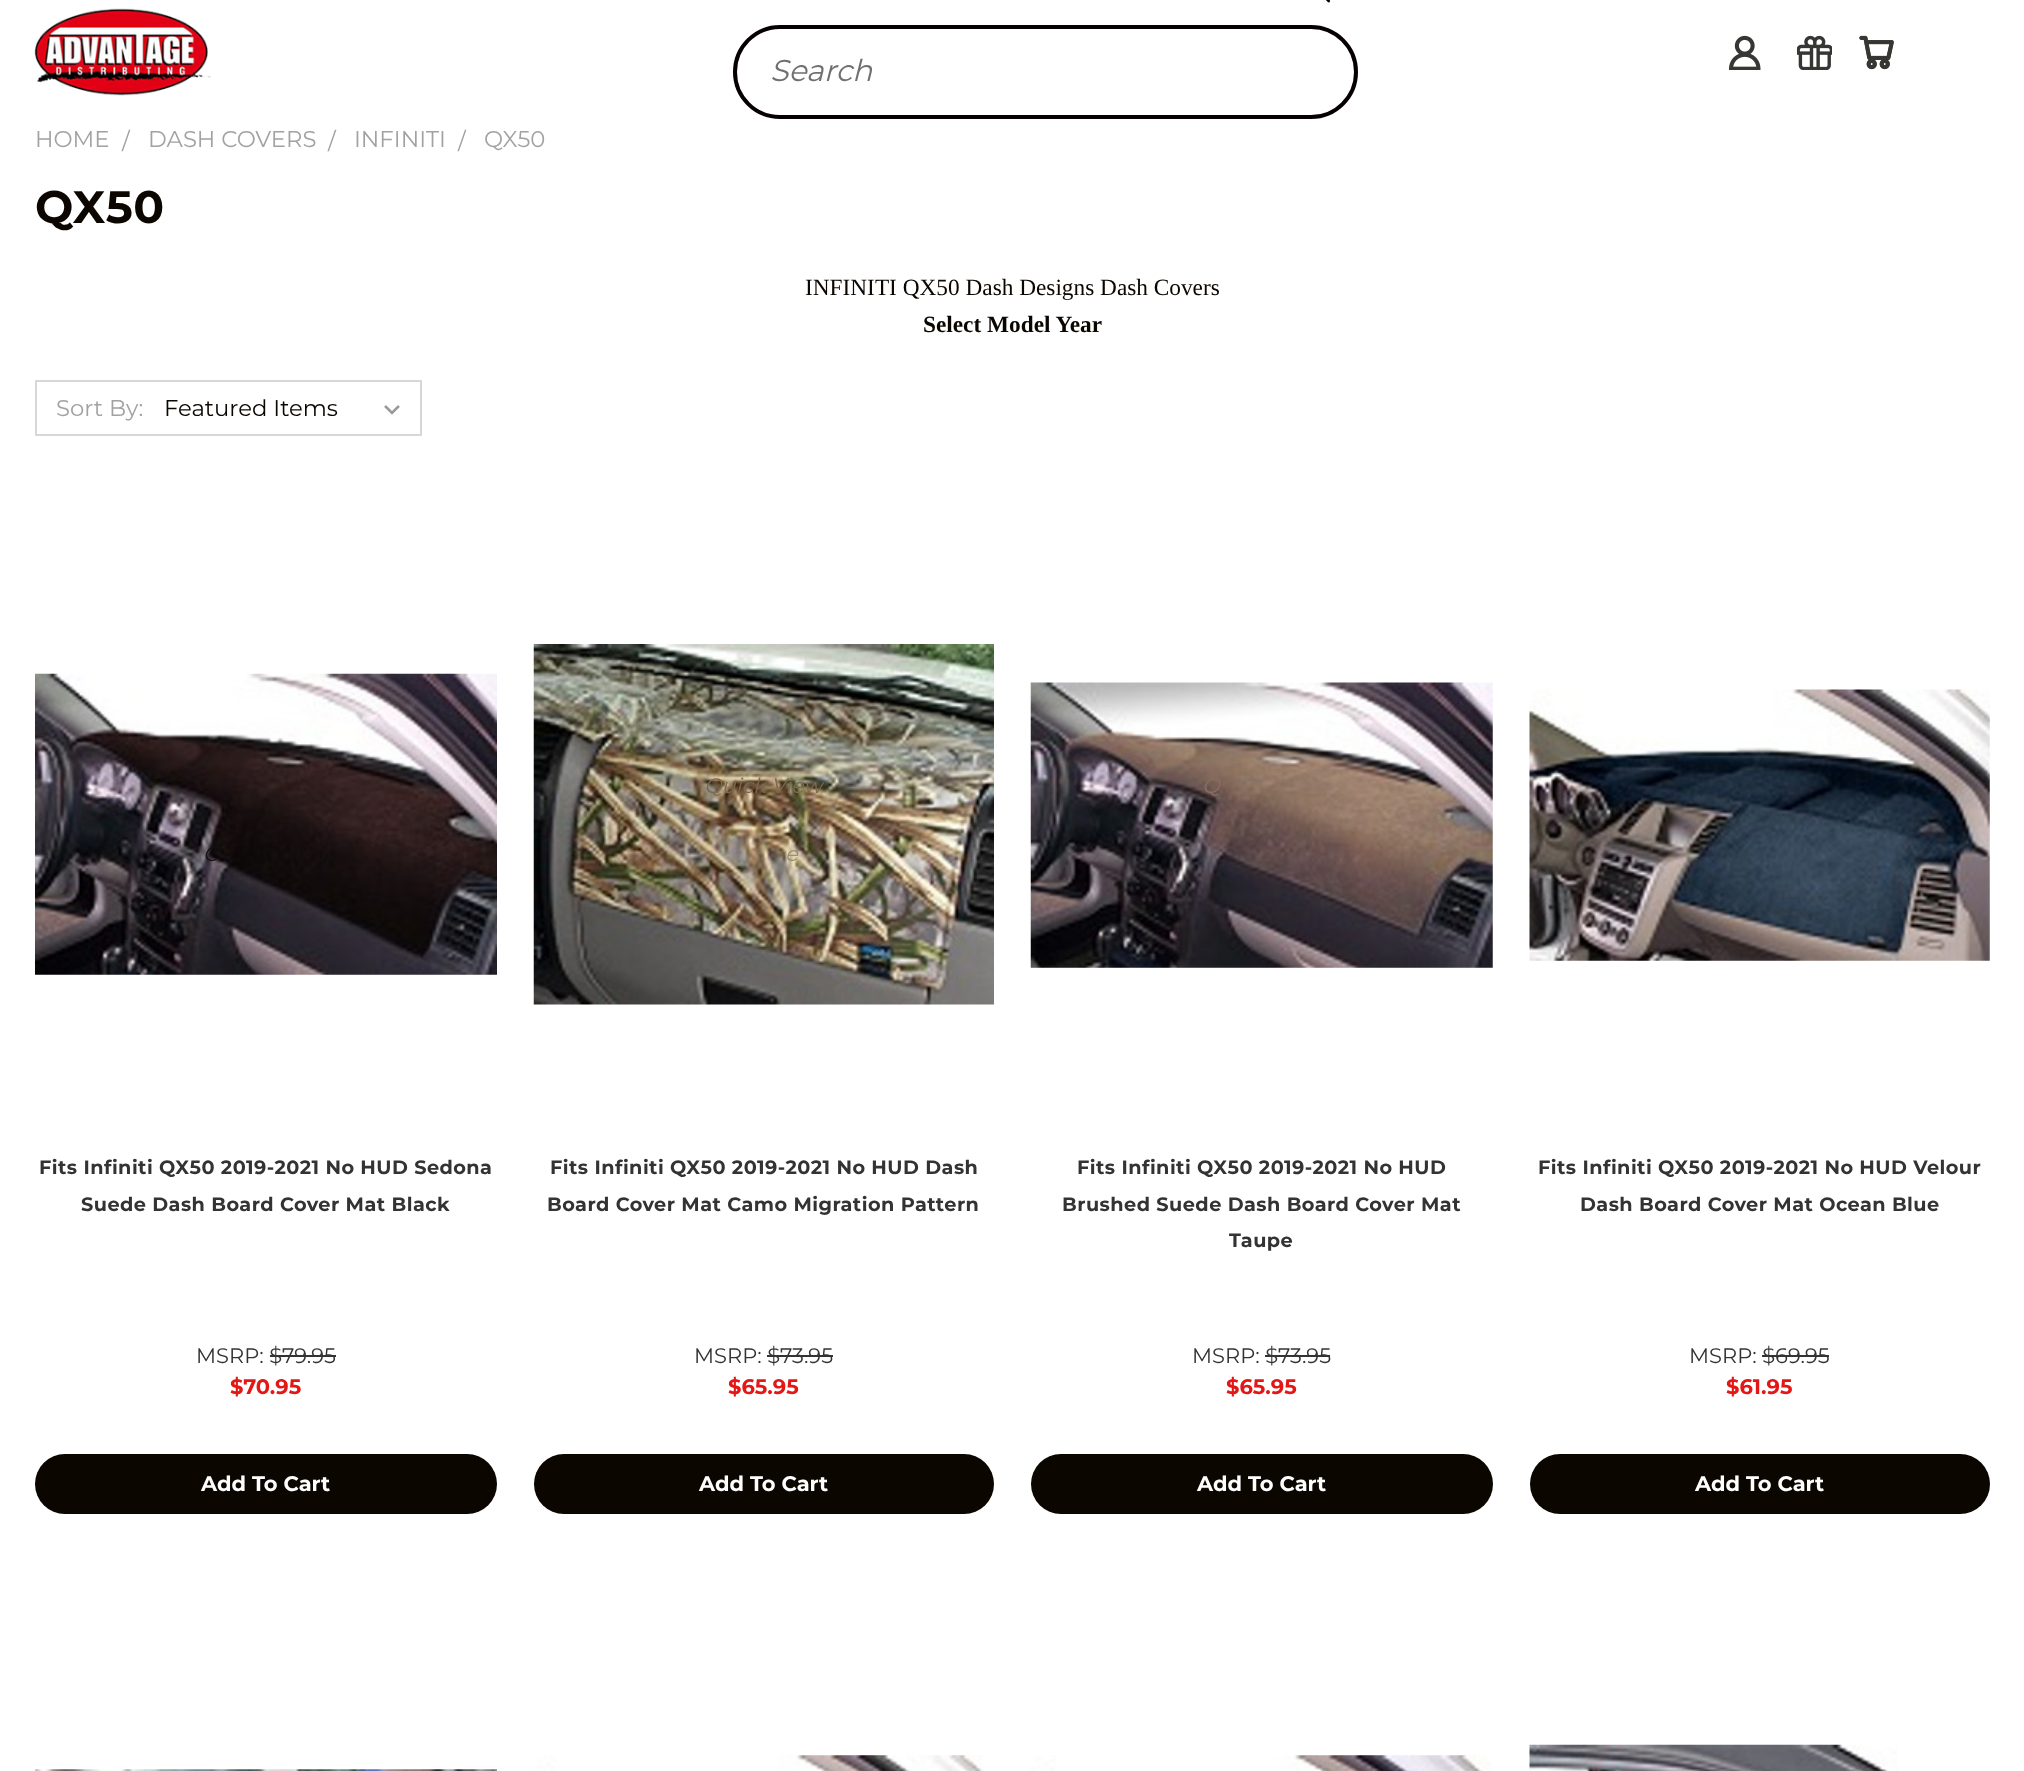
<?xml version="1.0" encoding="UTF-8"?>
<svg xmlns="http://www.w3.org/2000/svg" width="2024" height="1771">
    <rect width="100%" height="100%" fill="#FFFFFF"/>
    <image x="34" y="8" width="177" height="88" href="img_01.png"/>
    <image x="1326" y="0" width="4" height="3" href="img_02.png"/>
    <rect x="735" y="27" width="621" height="90" rx="45" fill="none" stroke="#060000" stroke-width="4"/>
    <text x="770" y="81" font-family="Montserrat" font-size="30" font-style="italic" fill="#70706E">Search</text>
    <image x="1729" y="35" width="32" height="35" href="img_03.png"/>
    <image x="1797" y="35" width="35" height="35" href="img_04.png"/>
    <image x="1859" y="35" width="35" height="35" href="img_05.png"/>
    <text x="35" y="147" font-family="Montserrat" font-size="22.75" fill="#A2A2A2">HOME</text>
    <text x="122" y="149" font-family="Montserrat" font-size="22.75" fill="#A2A2A2">/</text>
    <text x="148" y="147" font-family="Montserrat" font-size="22.75" fill="#A2A2A2">DASH COVERS</text>
    <text x="328" y="149" font-family="Montserrat" font-size="22.75" fill="#A2A2A2">/</text>
    <text x="354" y="147" font-family="Montserrat" font-size="22.75" fill="#A2A2A2">INFINITI</text>
    <text x="458" y="149" font-family="Montserrat" font-size="22.75" fill="#A2A2A2">/</text>
    <text x="484" y="147" font-family="Montserrat" font-size="22.75" fill="#A2A2A2">QX50</text>
    <text x="35" y="223" font-family="Montserrat" font-size="45.5" font-weight="700" letter-spacing="0.45" fill="#0C0600">QX50</text>
    <text x="805" y="295" font-family="Liberation Serif" font-size="23.3" fill="#0C0600">INFINITI QX50 Dash Designs Dash Covers</text>
    <text x="923" y="332" font-family="Liberation Serif" font-size="23.3" font-weight="700" fill="#0C0600">Select Model Year</text>
    <rect x="36" y="381" width="385" height="54" fill="none" stroke="#D7D7D7" stroke-width="2"/>
    <text x="56" y="416" font-family="Montserrat" font-size="22.75" fill="#A2A2A2">Sort By:</text>
    <image x="384" y="405" width="16" height="10" href="img_06.png"/>
    <text x="164" y="416" font-family="Montserrat" font-size="22.75" fill="#0C0600">Featured Items</text>
    <image x="35" y="673" width="462" height="302" href="img_07.png"/>
    <text x="203" y="861" font-family="Montserrat" font-size="21" font-style="italic" fill="#171112">C</text>
    <text x="39" y="1174" font-family="Montserrat" font-size="19.25" font-weight="700" letter-spacing="0.45" fill="#333333">Fits Infiniti QX50 2019-2021 No HUD Sedona</text>
    <text x="81" y="1211" font-family="Montserrat" font-size="19.25" font-weight="700" letter-spacing="0.45" fill="#333333">Suede Dash Board Cover Mat Black</text>
    <text x="196" y="1363" font-family="Montserrat" font-size="21" fill="#333333">MSRP: $79.95</text>
    <rect x="270" y="1355" width="66" height="2" fill="#333333"/>
    <text x="230" y="1394" font-family="Montserrat" font-size="21" font-weight="700" fill="#E21716">$70.95</text>
    <rect x="35" y="1454" width="462" height="60" rx="30" fill="#0C0600"/>
    <text x="201" y="1491" font-family="Montserrat" font-size="21" font-weight="700" fill="#FFFFFF">Add To Cart</text>
    <image x="533" y="644" width="461" height="361" href="img_08.png"/>
    <text x="704" y="793" font-family="Montserrat" font-size="21" font-style="italic" fill="#7B6A4F">Quick View</text>
    <text x="785" y="861" font-family="Montserrat" font-size="21" font-style="italic" fill="#9D8D77">e</text>
    <text x="550" y="1174" font-family="Montserrat" font-size="19.25" font-weight="700" letter-spacing="0.45" fill="#333333">Fits Infiniti QX50 2019-2021 No HUD Dash</text>
    <text x="547" y="1211" font-family="Montserrat" font-size="19.25" font-weight="700" letter-spacing="0.45" fill="#333333">Board Cover Mat Camo Migration Pattern</text>
    <text x="694" y="1363" font-family="Montserrat" font-size="21" fill="#333333">MSRP: $73.95</text>
    <rect x="767" y="1355" width="66" height="2" fill="#333333"/>
    <text x="728" y="1394" font-family="Montserrat" font-size="21" font-weight="700" fill="#E21716">$65.95</text>
    <rect x="534" y="1454" width="460" height="60" rx="30" fill="#0C0600"/>
    <text x="699" y="1491" font-family="Montserrat" font-size="21" font-weight="700" fill="#FFFFFF">Add To Cart</text>
    <image x="1030" y="682" width="463" height="286" href="img_09.png"/>
    <text x="1202" y="793" font-family="Montserrat" font-size="21" font-style="italic" fill="#886E60">Q</text>
    <text x="1077" y="1174" font-family="Montserrat" font-size="19.25" font-weight="700" letter-spacing="0.45" fill="#333333">Fits Infiniti QX50 2019-2021 No HUD</text>
    <text x="1062" y="1211" font-family="Montserrat" font-size="19.25" font-weight="700" letter-spacing="0.45" fill="#333333">Brushed Suede Dash Board Cover Mat</text>
    <text x="1229" y="1247" font-family="Montserrat" font-size="19.25" font-weight="700" letter-spacing="0.45" fill="#333333">Taupe</text>
    <text x="1192" y="1363" font-family="Montserrat" font-size="21" fill="#333333">MSRP: $73.95</text>
    <rect x="1265" y="1355" width="65" height="2" fill="#333333"/>
    <text x="1226" y="1394" font-family="Montserrat" font-size="21" font-weight="700" fill="#E21716">$65.95</text>
    <rect x="1031" y="1454" width="462" height="60" rx="30" fill="#0C0600"/>
    <text x="1197" y="1491" font-family="Montserrat" font-size="21" font-weight="700" fill="#FFFFFF">Add To Cart</text>
    <image x="1529" y="689" width="461" height="272" href="img_10.png"/>
    <text x="1538" y="1174" font-family="Montserrat" font-size="19.25" font-weight="700" letter-spacing="0.45" fill="#333333">Fits Infiniti QX50 2019-2021 No HUD Velour</text>
    <text x="1580" y="1211" font-family="Montserrat" font-size="19.25" font-weight="700" letter-spacing="0.45" fill="#333333">Dash Board Cover Mat Ocean Blue</text>
    <text x="1689" y="1363" font-family="Montserrat" font-size="21" fill="#333333">MSRP: $69.95</text>
    <rect x="1762" y="1355" width="67" height="2" fill="#333333"/>
    <text x="1726" y="1394" font-family="Montserrat" font-size="21" font-weight="700" fill="#E21716">$61.95</text>
    <rect x="1530" y="1454" width="460" height="60" rx="30" fill="#0C0600"/>
    <text x="1695" y="1491" font-family="Montserrat" font-size="21" font-weight="700" fill="#FFFFFF">Add To Cart</text>
    <image x="35" y="1769" width="462" height="2" href="img_11.png"/>
    <image x="535" y="1755" width="449" height="16" href="img_12.png"/>
    <image x="1031" y="1755" width="460" height="16" href="img_13.png"/>
    <image x="1529" y="1744" width="369" height="27" href="img_14.png"/>
</svg>
